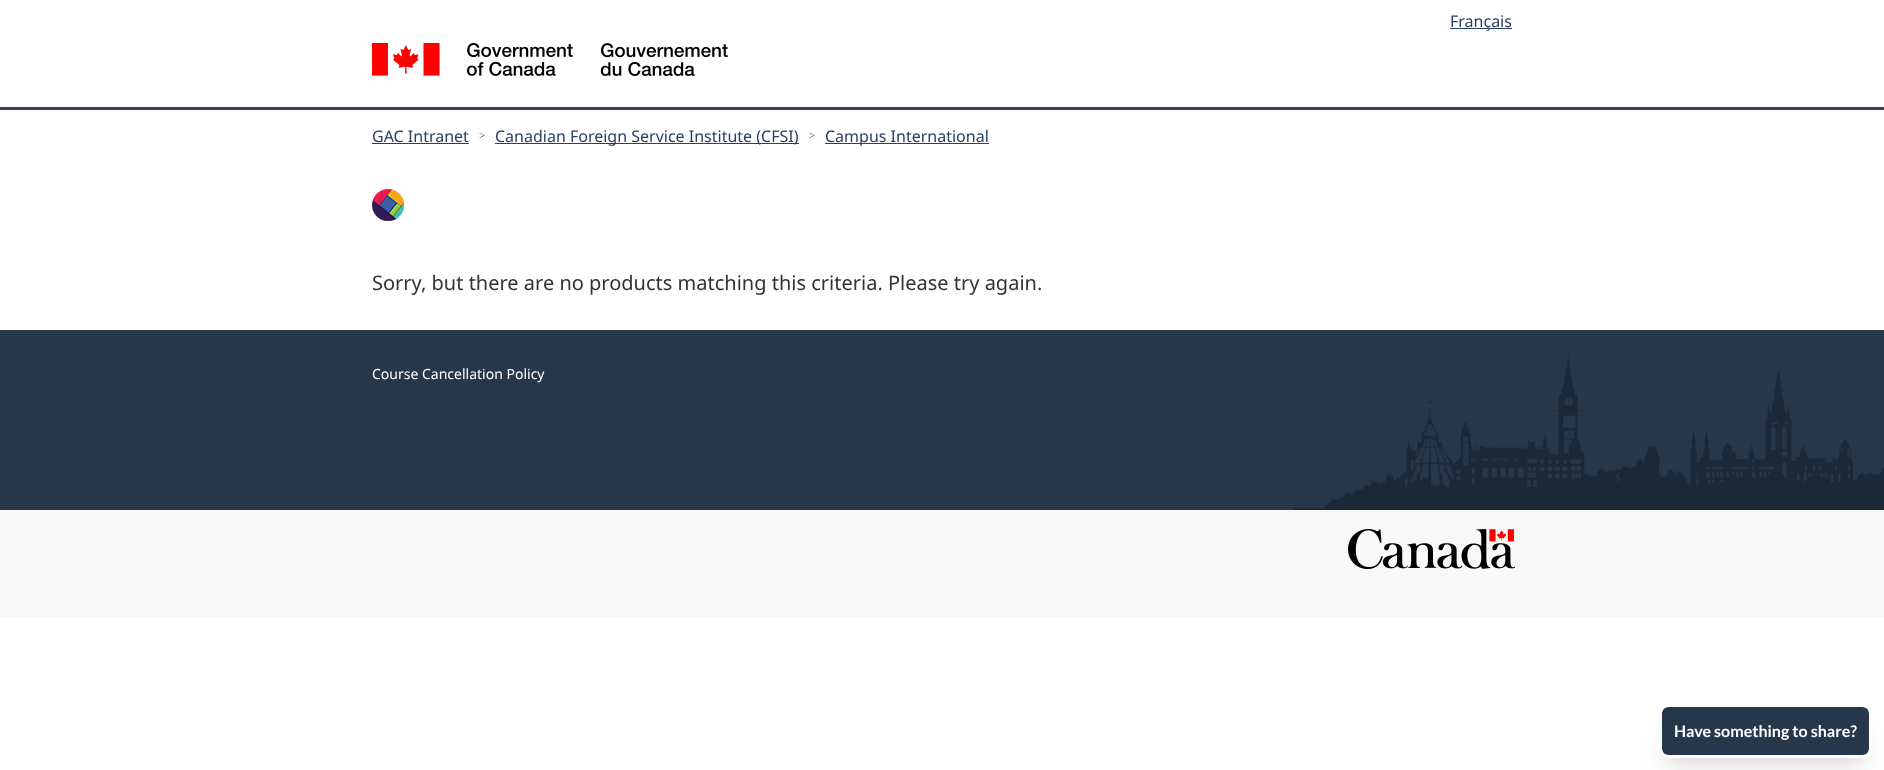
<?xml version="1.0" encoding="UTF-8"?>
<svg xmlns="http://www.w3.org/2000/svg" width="1884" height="770">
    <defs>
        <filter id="blur1" x="-50%" y="-200%" width="200%" height="500%"><feGaussianBlur stdDeviation="5"/></filter>
        <filter id="blur2" x="-50%" y="-200%" width="200%" height="500%"><feGaussianBlur stdDeviation="12.5"/></filter>
    </defs>
    <rect width="100%" height="100%" fill="#FFFFFF"/>
    <rect x="1450" y="28" width="62" height="1" fill="#284162"/>
    <text x="1450" y="27" font-family="Noto Sans" font-size="16" fill="#284162">Français</text>
    <image x="372" y="43" width="356" height="33" href="img_01.png"/>
    <rect x="0" y="107" width="1884" height="3" fill="#38414D"/>
    <text x="372" y="142" font-family="Noto Sans" font-size="16" fill="#284162">GAC Intranet</text>
    <rect x="372" y="143" width="97" height="1" fill="#284162"/>
    <text x="479" y="139" font-family="Liberation Serif" font-size="11" fill="#333333">&gt;</text>
    <rect x="495" y="143" width="304" height="1" fill="#284162"/>
    <text x="495" y="142" font-family="Noto Sans" font-size="16" fill="#284162">Canadian Foreign Service Institute (CFSI)</text>
    <text x="809" y="139" font-family="Liberation Serif" font-size="11" fill="#333333">&gt;</text>
    <rect x="825" y="143" width="164" height="1" fill="#284162"/>
    <text x="825" y="142" font-family="Noto Sans" font-size="16" fill="#284162">Campus International</text>
    <image x="372" y="189" width="32" height="32" href="img_02.png"/>
    <text x="372" y="290" font-family="Noto Sans" font-size="20" fill="#333333">Sorry, but there are no products matching this criteria. Please try again.</text>
    <rect x="0" y="330" width="1884" height="180" fill="#26374A"/>
    <image x="1294" y="347" width="590" height="163" href="img_03.png"/>
    <text x="372" y="379" font-family="Noto Sans" font-size="14" fill="#FFFFFF">Course Cancellation Policy</text>
    <rect x="0" y="510" width="1884" height="107" fill="#F8F8F8"/>
    <image x="1348" y="529" width="167" height="40" href="img_04.png"/>
    <rect x="1668" y="721" width="195" height="36" fill="#000000" fill-opacity="0.1" filter="url(#blur1)"/>
    <rect x="1667" y="732" width="197" height="38" rx="1" fill="#000000" fill-opacity="0.1" filter="url(#blur2)"/>
    <rect x="1662" y="707" width="207" height="48" rx="6" fill="#26374A"/>
    <rect x="1660.5" y="705.5" width="210" height="51" rx="7.5" fill="none" stroke="#FFFFFF" stroke-width="3"/>
    <text x="1674" y="737" font-family="Lato" font-size="16" font-weight="700" fill="#FFFFFF">Have something to share?</text>
</svg>
